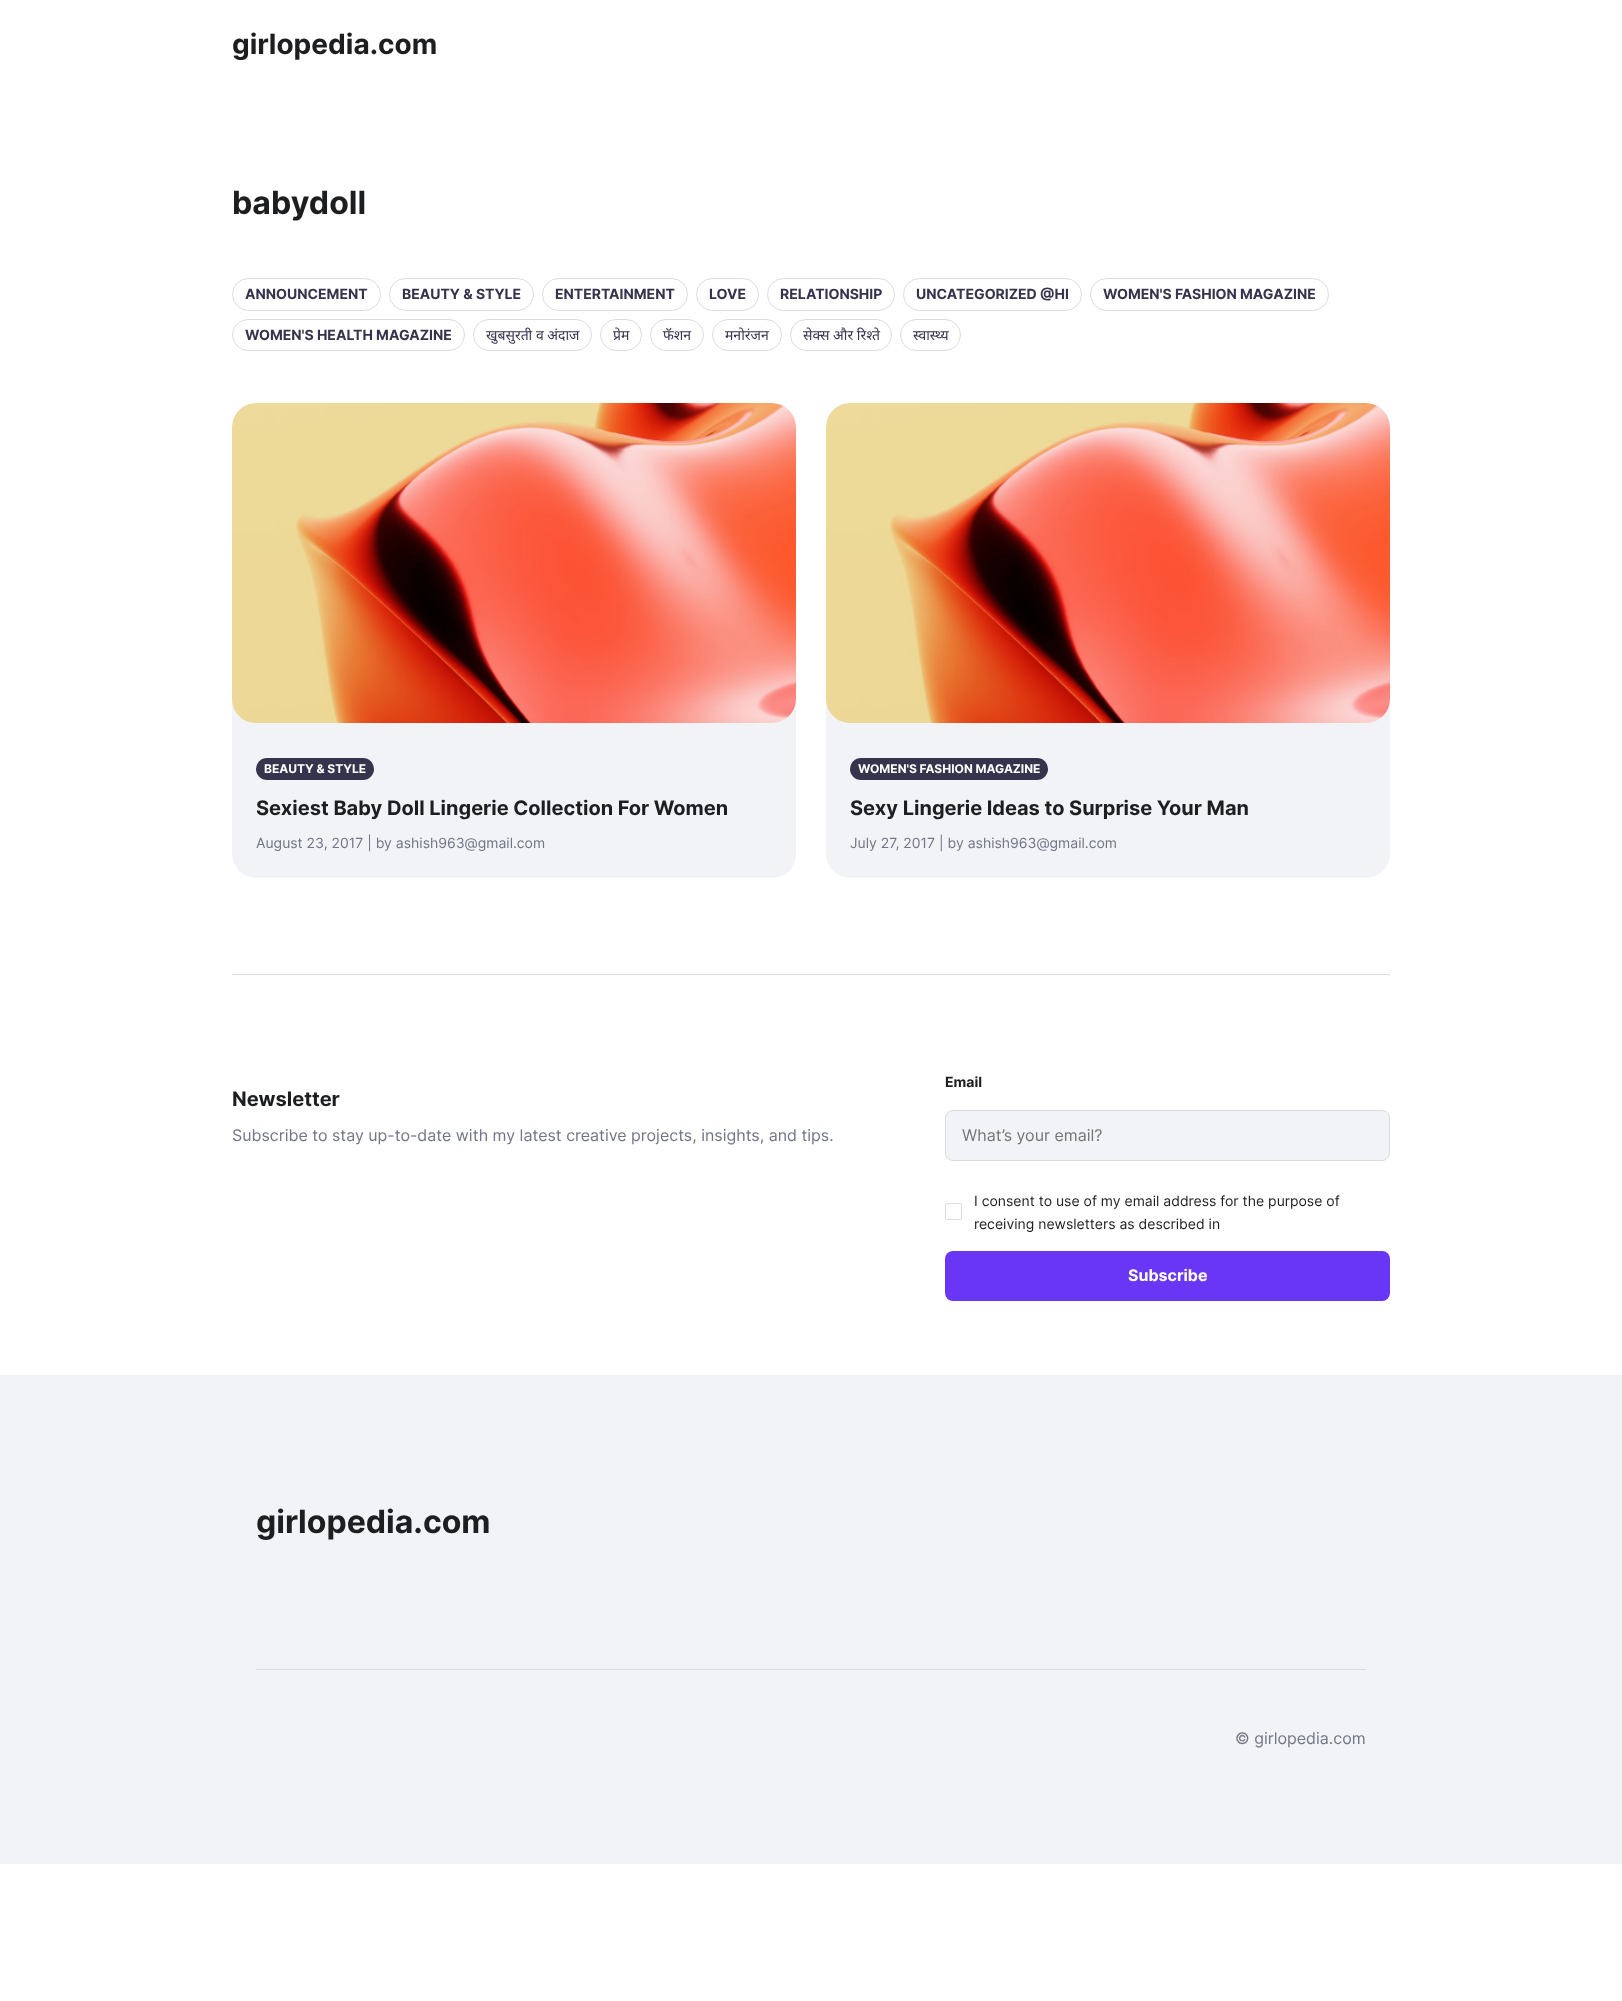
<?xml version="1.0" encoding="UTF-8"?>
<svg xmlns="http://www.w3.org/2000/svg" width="1622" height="2001">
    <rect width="100%" height="100%" fill="#FFFFFF"/>
    <text x="232" y="54" font-family="Inter" font-size="28" font-weight="700" fill="#1D1E20">girlopedia.com</text>
    <text x="232" y="214" font-family="Inter" font-size="32" font-weight="700" fill="#1D1E20">babydoll</text>
    <rect x="232.5" y="278.5" width="148" height="32" rx="16" fill="none" stroke="#DADCE0"/>
    <text x="245" y="299" font-family="Inter" font-size="14" font-weight="700" fill="#36344D">ANNOUNCEMENT</text>
    <rect x="389.5" y="278.5" width="144" height="32" rx="16" fill="none" stroke="#DADCE0"/>
    <text x="402" y="299" font-family="Inter" font-size="14" font-weight="700" fill="#36344D">BEAUTY &amp; STYLE</text>
    <rect x="542.5" y="278.5" width="145" height="32" rx="16" fill="none" stroke="#DADCE0"/>
    <text x="555" y="299" font-family="Inter" font-size="14" font-weight="700" fill="#36344D">ENTERTAINMENT</text>
    <rect x="696.5" y="278.5" width="62" height="32" rx="16" fill="none" stroke="#DADCE0"/>
    <text x="709" y="299" font-family="Inter" font-size="14" font-weight="700" fill="#36344D">LOVE</text>
    <rect x="767.5" y="278.5" width="127" height="32" rx="16" fill="none" stroke="#DADCE0"/>
    <text x="780" y="299" font-family="Inter" font-size="14" font-weight="700" fill="#36344D">RELATIONSHIP</text>
    <rect x="903.5" y="278.5" width="178" height="32" rx="16" fill="none" stroke="#DADCE0"/>
    <text x="916" y="299" font-family="Inter" font-size="14" font-weight="700" fill="#36344D">UNCATEGORIZED @HI</text>
    <rect x="1090.5" y="278.5" width="238" height="32" rx="16" fill="none" stroke="#DADCE0"/>
    <text x="1103" y="299" font-family="Inter" font-size="14" font-weight="700" fill="#36344D">WOMEN'S FASHION MAGAZINE</text>
    <rect x="232.5" y="319.5" width="232" height="31" rx="15.5" fill="none" stroke="#DADCE0"/>
    <text x="245" y="340" font-family="Inter" font-size="14" font-weight="700" fill="#36344D">WOMEN'S HEALTH MAGAZINE</text>
    <rect x="473.5" y="319.5" width="118" height="31" rx="15.5" fill="none" stroke="#DADCE0"/>
    <text x="486" y="340" font-family="Noto Sans" font-size="14" fill="#36344D">खुबसुरती व अंदाज</text>
    <rect x="600.5" y="319.5" width="41" height="31" rx="15.5" fill="none" stroke="#DADCE0"/>
    <text x="613" y="340" font-family="Noto Sans" font-size="14" fill="#36344D">प्रेम</text>
    <rect x="650.5" y="319.5" width="53" height="31" rx="15.5" fill="none" stroke="#DADCE0"/>
    <text x="663" y="340" font-family="Noto Sans" font-size="14" fill="#36344D">फॅशन</text>
    <rect x="712.5" y="319.5" width="69" height="31" rx="15.5" fill="none" stroke="#DADCE0"/>
    <text x="725" y="340" font-family="Noto Sans" font-size="14" fill="#36344D">मनोरंजन</text>
    <rect x="790.5" y="319.5" width="101" height="31" rx="15.5" fill="none" stroke="#DADCE0"/>
    <text x="803" y="340" font-family="Noto Sans" font-size="14" fill="#36344D">सेक्स और रिश्ते</text>
    <rect x="900.5" y="319.5" width="60" height="31" rx="15.5" fill="none" stroke="#DADCE0"/>
    <text x="913" y="340" font-family="Noto Sans" font-size="14" fill="#36344D">स्वास्थ्य</text>
    <rect x="232" y="403" width="564" height="475" rx="24" fill="#F2F3F6"/>
    <image x="232" y="403" width="564" height="320" href="img_01.png"/>
    <rect x="256" y="758" width="118" height="22" rx="11" fill="#36344D"/>
    <text x="264" y="773" font-family="Inter" font-size="12" font-weight="700" fill="#FFFFFF">BEAUTY &amp; STYLE</text>
    <text x="256" y="815" font-family="Inter" font-size="20" font-weight="700" fill="#1D1E20">Sexiest Baby Doll Lingerie Collection For Women</text>
    <text x="256" y="848" font-family="Inter" font-size="14" fill="#727586">August 23, 2017 | by ashish963@gmail.com</text>
    <rect x="826" y="403" width="564" height="475" rx="24" fill="#F2F3F6"/>
    <image x="826" y="403" width="564" height="320" href="img_02.png"/>
    <rect x="850" y="758" width="198" height="22" rx="11" fill="#36344D"/>
    <text x="858" y="773" font-family="Inter" font-size="12" font-weight="700" fill="#FFFFFF">WOMEN'S FASHION MAGAZINE</text>
    <text x="850" y="815" font-family="Inter" font-size="20" font-weight="700" fill="#1D1E20">Sexy Lingerie Ideas to Surprise Your Man</text>
    <text x="850" y="848" font-family="Inter" font-size="14" fill="#727586">July 27, 2017 | by ashish963@gmail.com</text>
    <rect x="232" y="974" width="1158" height="1" fill="#DADCE0"/>
    <text x="232" y="1106" font-family="Inter" font-size="20" font-weight="700" fill="#1D1E20">Newsletter</text>
    <text x="232" y="1141" font-family="Inter" font-size="16" fill="#727586">Subscribe to stay up-to-date with my latest creative projects, insights, and tips.</text>
    <text x="945" y="1087" font-family="Inter" font-size="14" font-weight="700" fill="#1D1E20">Email</text>
    <rect x="945.5" y="1110.5" width="444" height="50" rx="7.5" fill="#F2F3F6" stroke="#DADCE0"/>
    <text x="962" y="1141" font-family="Inter" font-size="16" fill="#757575">What’s your email?</text>
    <rect x="945.5" y="1203.5" width="16" height="16" rx="1.5" fill="none" stroke="#DADCE0"/>
    <text font-family="Inter" font-size="14" fill="#1D1E20">
        <tspan x="974" y="1206">I consent to use of my email address for the purpose of</tspan>
        <tspan x="974" y="1229">receiving newsletters as described in</tspan>
    </text>
    <rect x="945" y="1251" width="445" height="50" rx="8" fill="#6936F5"/>
    <text x="1128" y="1281" font-family="Inter" font-size="16" font-weight="700" fill="#FFFFFF">Subscribe</text>
    <rect x="0" y="1375" width="1622" height="489" fill="#F2F3F6"/>
    <text x="256" y="1533" font-family="Inter" font-size="32" font-weight="700" fill="#1D1E20">girlopedia.com</text>
    <rect x="256" y="1669" width="1110" height="1" fill="#DADCE0"/>
    <text x="1235" y="1744" font-family="Inter" font-size="16" fill="#727586">© girlopedia.com</text>
</svg>
